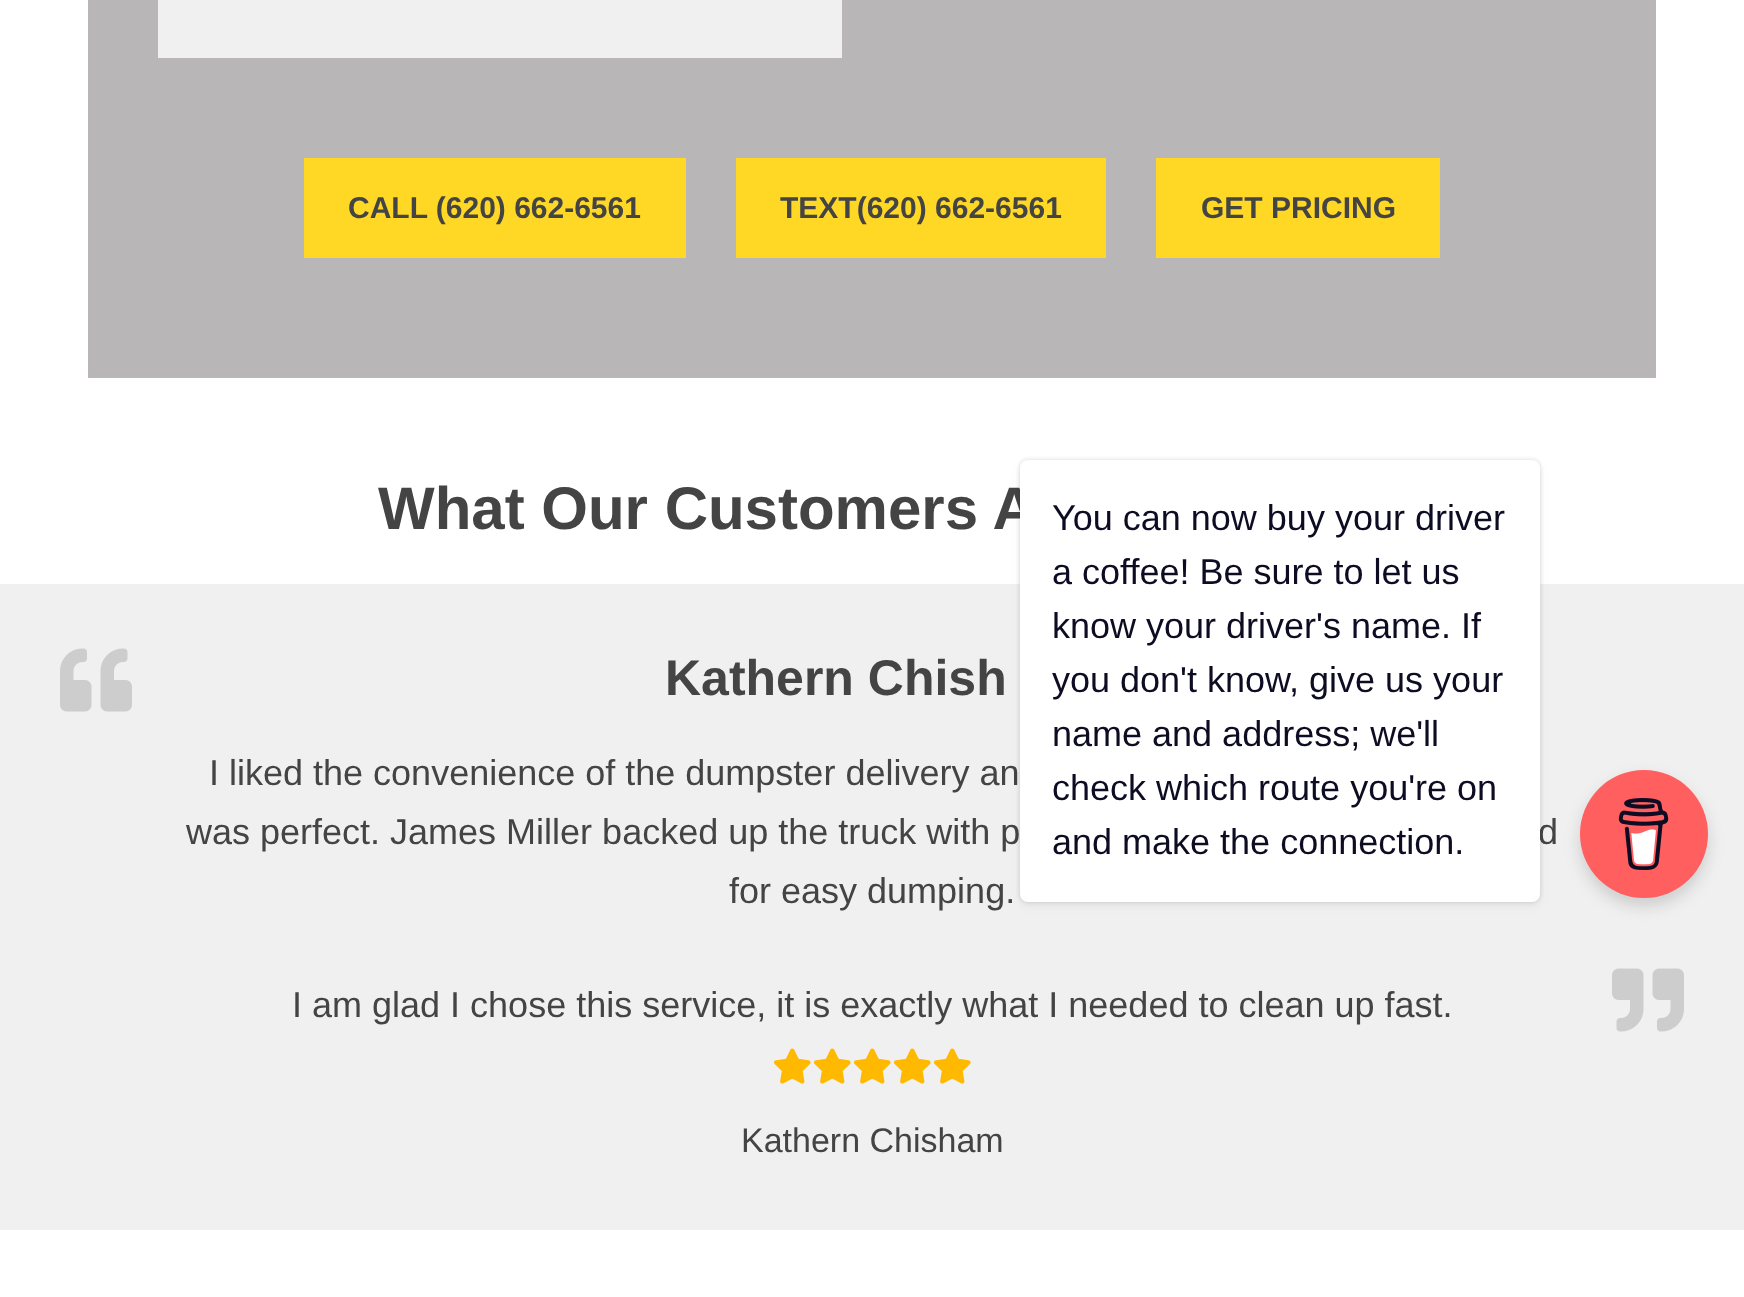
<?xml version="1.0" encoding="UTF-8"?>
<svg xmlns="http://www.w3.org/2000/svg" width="1744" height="1297">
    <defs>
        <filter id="blur1" x="-50%" y="-200%" width="200%" height="500%"><feGaussianBlur stdDeviation="2"/></filter>
        <filter id="blur2" x="-50%" y="-200%" width="200%" height="500%"><feGaussianBlur stdDeviation="5"/></filter>
        <filter id="blur3" x="-50%" y="-200%" width="200%" height="500%"><feGaussianBlur stdDeviation="8"/></filter>
    </defs>
    <rect width="100%" height="100%" fill="#FFFFFF"/>
    <rect x="88" y="0" width="1568" height="378" fill="#B8B6B6"/>
    <rect x="158" y="0" width="684" height="58" fill="#F0F0F0"/>
    <rect x="304" y="158" width="382" height="100" fill="#FED825"/>
    <text x="348" y="218" font-family="Liberation Sans" font-size="30" font-weight="700" fill="#444444">CALL (620) 662-6561</text>
    <rect x="736" y="158" width="370" height="100" fill="#FED825"/>
    <text x="780" y="218" font-family="Liberation Sans" font-size="30" font-weight="700" fill="#444444">TEXT(620) 662-6561</text>
    <rect x="1156" y="158" width="284" height="100" fill="#FED825"/>
    <text x="1201" y="218" font-family="Liberation Sans" font-size="30" font-weight="700" fill="#444444">GET PRICING</text>
    <text x="378" y="529" font-family="Liberation Sans" font-size="60" font-weight="700" fill="#444444">What Our Customers A</text>
    <rect x="0" y="584" width="1744" height="646" fill="#F0F0F0"/>
    <image x="60" y="648" width="72" height="64" href="img_01.png"/>
    <text x="665" y="695" font-family="Liberation Sans" font-size="50" font-weight="700" fill="#444444">Kathern Chish</text>
    <text x="209" y="785" font-family="Liberation Sans" font-size="36" fill="#444444">I liked the convenience of the dumpster delivery an</text>
    <text x="186" y="844" font-family="Liberation Sans" font-size="36" fill="#444444">was perfect. James Miller backed up the truck with p</text>
    <text x="1538" y="844" font-family="Liberation Sans" font-size="36" fill="#444444">d</text>
    <text x="729" y="903" font-family="Liberation Sans" font-size="36" fill="#444444">for easy dumping.</text>
    <text x="292" y="1017" font-family="Liberation Sans" font-size="36" fill="#444444">I am glad I chose this service, it is exactly what I needed to clean up fast.</text>
    <image x="1612" y="968" width="72" height="64" href="img_02.png"/>
    <image x="774" y="1048" width="37" height="36" href="img_03.png"/>
    <image x="814" y="1048" width="37" height="36" href="img_03.png"/>
    <image x="854" y="1048" width="37" height="36" href="img_03.png"/>
    <image x="894" y="1048" width="37" height="36" href="img_03.png"/>
    <image x="934" y="1048" width="37" height="36" href="img_03.png"/>
    <text x="741" y="1152" font-family="Liberation Sans" font-size="34" fill="#444444">Kathern Chisham</text>
    <rect x="1020" y="460" width="520" height="442" rx="8" fill="#000000" fill-opacity="0.15" filter="url(#blur1)"/>
    <rect x="1020" y="464" width="520" height="442" rx="8" fill="#000000" fill-opacity="0.05" filter="url(#blur2)"/>
    <rect x="1020" y="460" width="520" height="442" rx="8" fill="#FFFFFF"/>
    <text font-family="Liberation Sans" font-size="36" fill="#0D0C22">
        <tspan x="1052" y="530">You can now buy your driver</tspan>
        <tspan x="1052" y="584">a coffee! Be sure to let us</tspan>
        <tspan x="1052" y="638">know your driver's name. If</tspan>
        <tspan x="1052" y="692">you don't know, give us your</tspan>
        <tspan x="1052" y="746">name and address; we'll</tspan>
        <tspan x="1052" y="800">check which route you're on</tspan>
        <tspan x="1052" y="854">and make the connection.</tspan>
    </text>
    <rect x="1580" y="778" width="128" height="128" rx="64" fill="#000000" fill-opacity="0.15" filter="url(#blur3)"/>
    <circle cx="1644" cy="834" r="64" fill="#FF5F5F"/>
    <image x="1618" y="798" width="51" height="72" href="img_04.png"/>
</svg>
